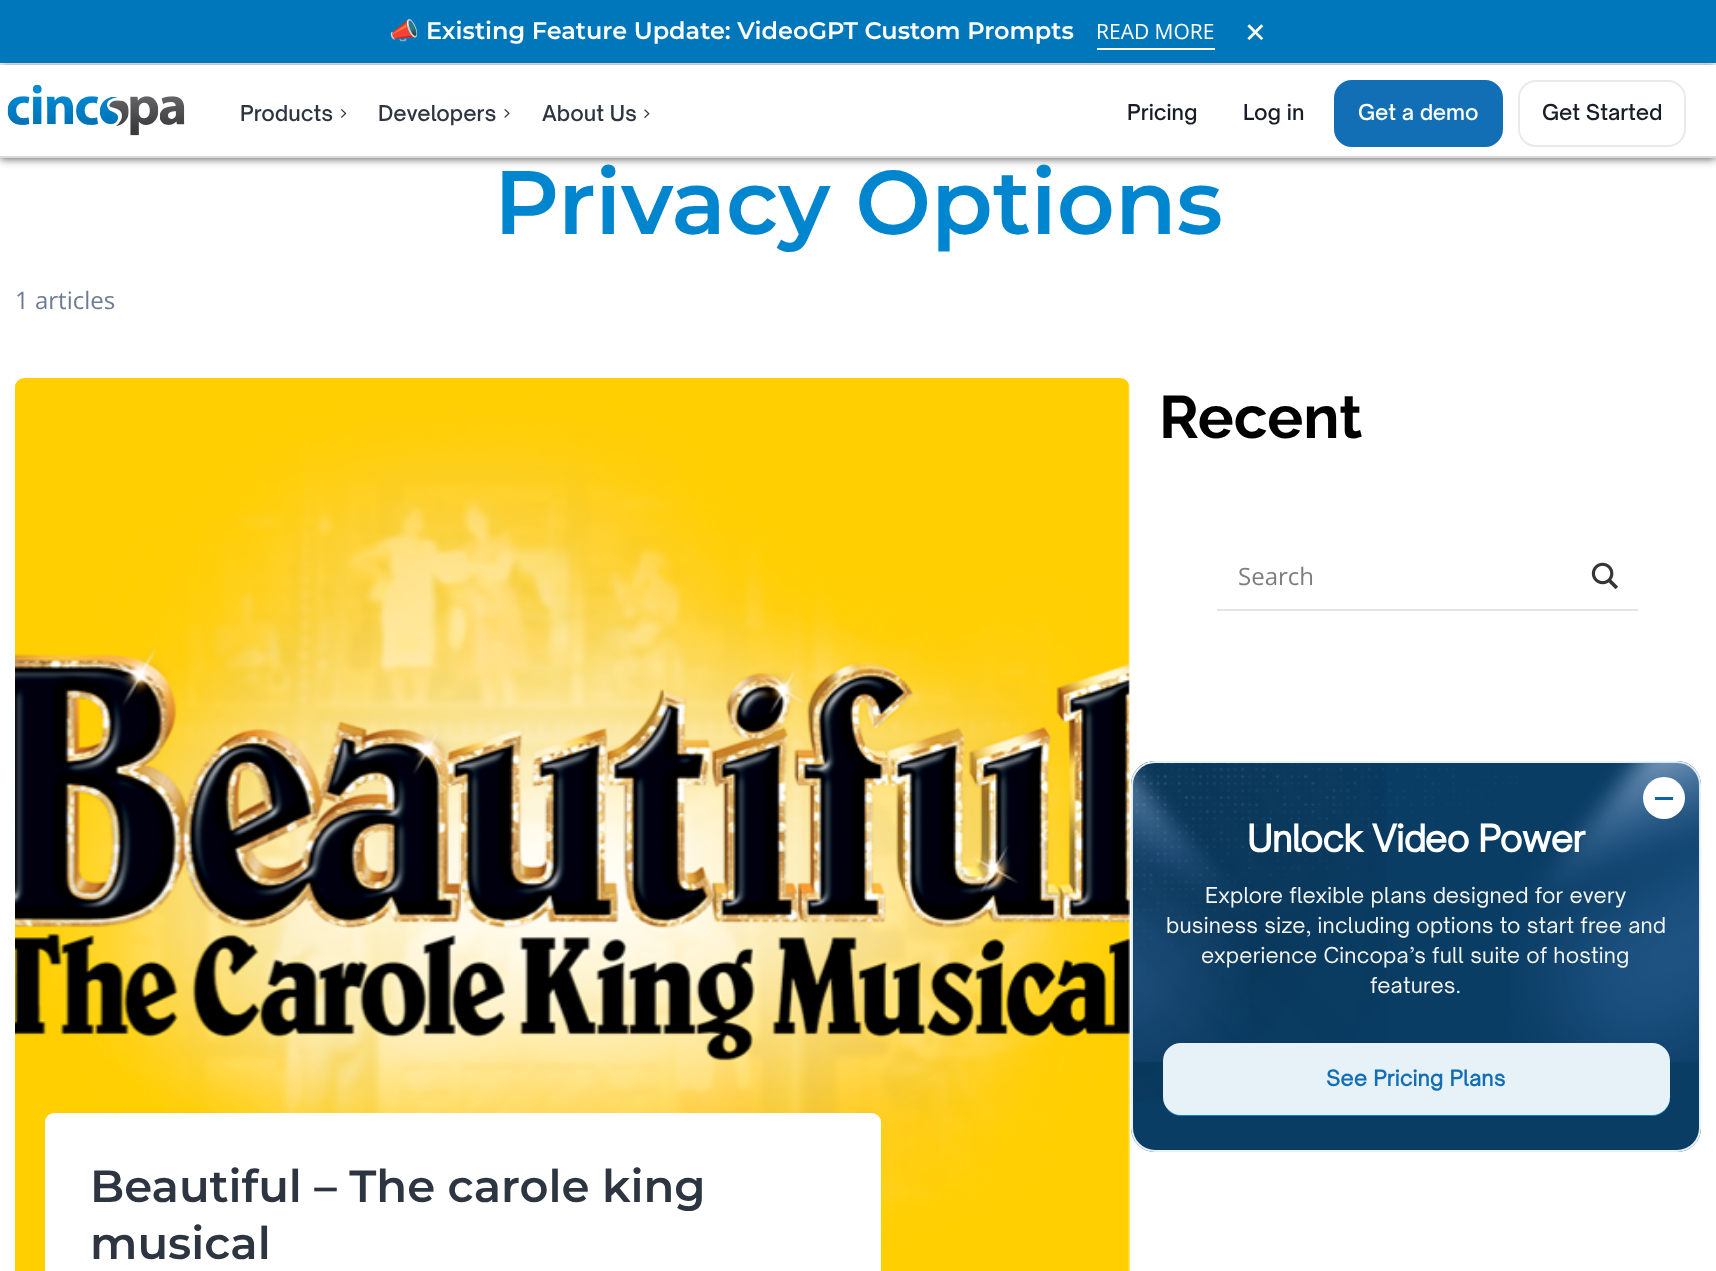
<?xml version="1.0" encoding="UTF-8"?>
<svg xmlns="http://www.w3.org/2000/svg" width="1716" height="1271">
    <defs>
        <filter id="blur1" x="-50%" y="-200%" width="200%" height="500%"><feGaussianBlur stdDeviation="4"/></filter>
    </defs>
    <rect width="100%" height="100%" fill="#FFFFFF"/>
    <rect x="0" y="66" width="1716" height="93" fill="#5F5F5F" filter="url(#blur1)"/>
    <rect x="0" y="0" width="1716" height="63" fill="#0076BB"/>
    <text x="389" y="39" font-family="Noto Color Emoji" font-size="24" font-weight="700" fill="#FFFFFF">📣</text>
    <text x="426" y="39" font-family="Montserrat" font-size="24" font-weight="600" fill="#FFFFFF">Existing Feature Update: VideoGPT Custom Prompts</text>
    <rect x="1097" y="48" width="118" height="2" fill="#FFFFFF"/>
    <text x="1096" y="39" font-family="Open Sans" font-size="21" fill="#FFFFFF">READ MORE</text>
    <text x="1244" y="42" font-family="DejaVu Sans" font-size="27" fill="#FFFFFF">✕</text>
    <rect x="0" y="65" width="1716" height="91" fill="#FFFFFF"/>
    <rect x="0" y="156" width="1716" height="2" fill="#D8DADF"/>
    <image x="7" y="85" width="178" height="51" href="img_01.png"/>
    <text x="240" y="121" font-family="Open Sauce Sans" font-size="21" font-weight="500" fill="#2D3541">Products</text>
    <image x="341" y="109" width="6" height="9" href="img_02.png"/>
    <text x="378" y="121" font-family="Open Sauce Sans" font-size="21" font-weight="500" fill="#2D3541">Developers</text>
    <image x="504" y="109" width="6" height="9" href="img_03.png"/>
    <text x="542" y="121" font-family="Open Sauce Sans" font-size="21" font-weight="500" fill="#2D3541">About Us</text>
    <image x="644" y="109" width="6" height="9" href="img_04.png"/>
    <text x="1127" y="120" font-family="Open Sauce Sans" font-size="21" font-weight="500" fill="#181D27">Pricing</text>
    <text x="1243" y="120" font-family="Open Sauce Sans" font-size="21" font-weight="500" fill="#181D27">Log in</text>
    <rect x="1335" y="81" width="167" height="65" rx="17" fill="#126EB5" stroke="#126EB5" stroke-width="2"/>
    <text x="1358" y="120" font-family="Open Sauce Sans" font-size="21" font-weight="500" fill="#FFFFFF">Get a demo</text>
    <rect x="1519" y="81" width="166" height="65" rx="17" fill="none" stroke="#E9EAEB" stroke-width="2"/>
    <text x="1542" y="120" font-family="Open Sauce Sans" font-size="21" font-weight="500" fill="#181D27">Get Started</text>
    <text x="494" y="234" font-family="Montserrat" font-size="90" font-weight="600" fill="#0086CF">Privacy Options</text>
    <text x="15" y="309" font-family="Open Sans" font-size="24" fill="#6B7C93">1 articles</text>
    <text x="1159" y="438" font-family="Raleway" font-size="60" font-weight="700" fill="#000000">Recent</text>
    <rect x="1217" y="609" width="421" height="2" fill="#E4E4E4"/>
    <text x="1238" y="585" font-family="Open Sans" font-size="24" fill="#7D7D7D">Search</text>
    <image x="1591" y="562" width="28" height="28" href="img_05.png"/>
    <image x="15" y="378" width="1115" height="893" href="img_06.png"/>
    <rect x="45" y="1113" width="836" height="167" rx="9" fill="#FFFFFF"/>
    <rect x="1131" y="761" width="570" height="391" rx="24" fill="#0A3D64"/>
    <image x="1131" y="762" width="387" height="341" href="img_07.png"/>
    <rect x="1132" y="762" width="568" height="389" rx="23" fill="none" stroke="#E7F1F8" stroke-width="2"/>
    <image x="1132" y="766" width="117" height="296" href="img_08.png"/>
    <image x="1511" y="762" width="189" height="300" href="img_09.png"/>
    <circle cx="1664" cy="798" r="21" fill="#FFFFFF"/>
    <rect x="1655" y="797" width="18" height="3" fill="#1064A5"/>
    <text x="1247" y="852" font-family="Open Sauce Sans" font-size="36" font-weight="700" letter-spacing="-0.75" fill="#FFFFFF">Unlock Video Power</text>
    <text x="1205" y="903" font-family="Open Sauce Sans" font-size="21" letter-spacing="0.2" fill="#F5F5F5">Explore flexible plans designed for every</text>
    <text x="1166" y="933" font-family="Open Sauce Sans" font-size="21" letter-spacing="0.2" fill="#F5F5F5">business size, including options to start free and</text>
    <text x="1201" y="963" font-family="Open Sauce Sans" font-size="21" letter-spacing="0.2" fill="#F5F5F5">experience Cincopa’s full suite of hosting</text>
    <text x="1370" y="993" font-family="Open Sauce Sans" font-size="21" letter-spacing="0.2" fill="#F5F5F5">features.</text>
    <path d="M 1164 1103 C 1166 1110 1173 1116 1181 1116 H 1652 C 1662 1116 1670 1108 1670 1098 V 1062 C 1670 1060 1670 1058 1669 1056 L 1670 1060 V 1096 C 1670 1106 1661 1114 1652 1114 H 1180 C 1173 1114 1166 1110 1164 1103 Z" fill="#0086CF"/>
    <rect x="1164" y="1044" width="505" height="70" rx="17" fill="#E7F1F8" stroke="#E7F1F8" stroke-width="2"/>
    <text x="1326" y="1086" font-family="Open Sauce Sans" font-size="21" font-weight="700" letter-spacing="0.2" fill="#126EB5">See Pricing Plans</text>
    <text font-family="Montserrat" font-size="45" font-weight="600" fill="#2D3541">
        <tspan x="90" y="1202">Beautiful – The carole king</tspan>
        <tspan x="90" y="1259">musical</tspan>
    </text>
</svg>
